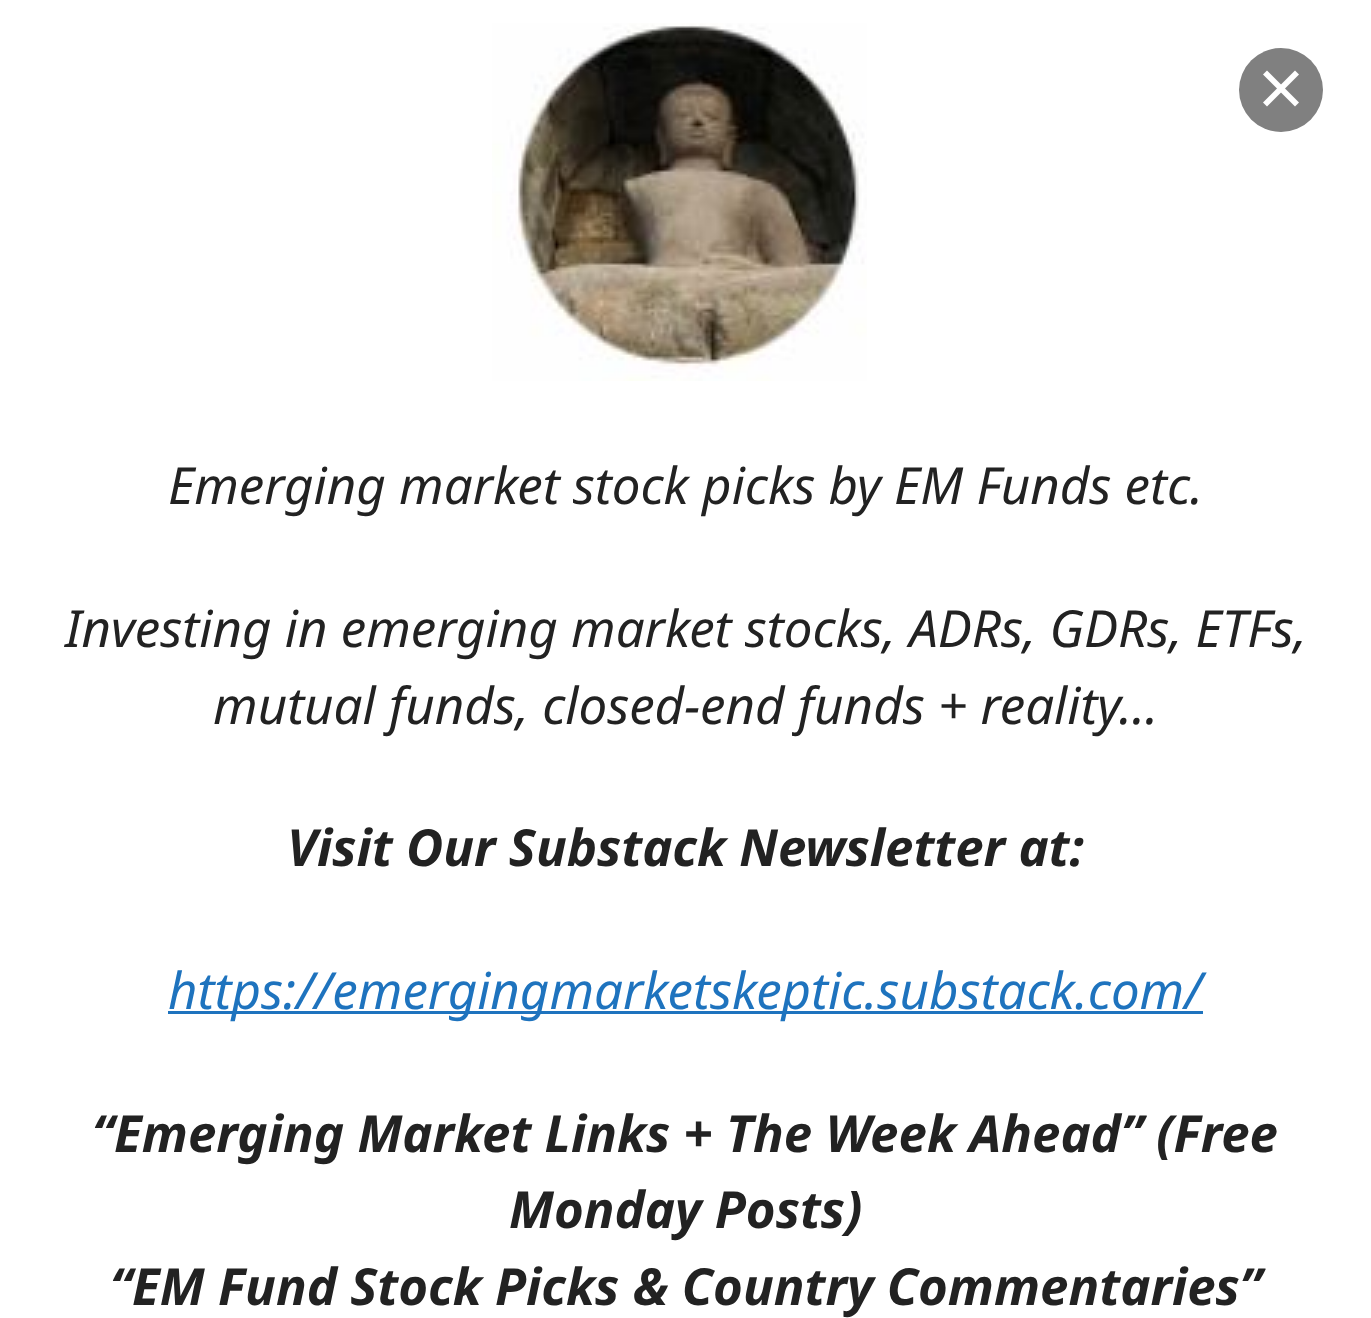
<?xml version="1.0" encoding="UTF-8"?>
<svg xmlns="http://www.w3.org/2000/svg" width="1371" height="1318">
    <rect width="100%" height="100%" fill="#FFFFFF"/>
    <circle cx="1281" cy="90" r="42" fill="#808080"/>
    <path d="M 1263 74.5 L 1267 70.5 L 1299 102.5 L 1295 106.5 Z" fill="#FFFFFF"/>
    <path d="M 1295 70.5 L 1299 74.5 L 1267 106.5 L 1263 102.5 Z" fill="#FFFFFF"/>
    <image x="492" y="23" width="375" height="358" href="img_01.png"/>
    <text x="168" y="504" font-family="Noto Sans" font-size="51" font-style="italic" fill="#222222">Emerging market stock picks by EM Funds etc.</text>
    <text x="65" y="647" font-family="Noto Sans" font-size="51" font-style="italic" fill="#222222">Investing in emerging market stocks, ADRs, GDRs, ETFs,</text>
    <text x="213" y="724" font-family="Noto Sans" font-size="51" font-style="italic" fill="#222222">mutual funds, closed-end funds + reality…</text>
    <text x="287" y="866" font-family="Noto Sans" font-size="51" font-weight="700" font-style="italic" fill="#222222">Visit Our Substack Newsletter at:</text>
    <rect x="168" y="1011" width="1035" height="3" fill="#1E73BE"/>
    <text x="168" y="1009" font-family="Noto Sans" font-size="51" font-style="italic" fill="#1E73BE">https://emergingmarketskeptic.substack.com/</text>
    <text x="92" y="1152" font-family="Noto Sans" font-size="51" font-weight="700" font-style="italic" fill="#222222">“Emerging Market Links + The Week Ahead” (Free</text>
    <text x="509" y="1228" font-family="Noto Sans" font-size="51" font-weight="700" font-style="italic" fill="#222222">Monday Posts)</text>
    <text x="110" y="1305" font-family="Noto Sans" font-size="51" font-weight="700" font-style="italic" fill="#222222">“EM Fund Stock Picks &amp; Country Commentaries”</text>
</svg>
